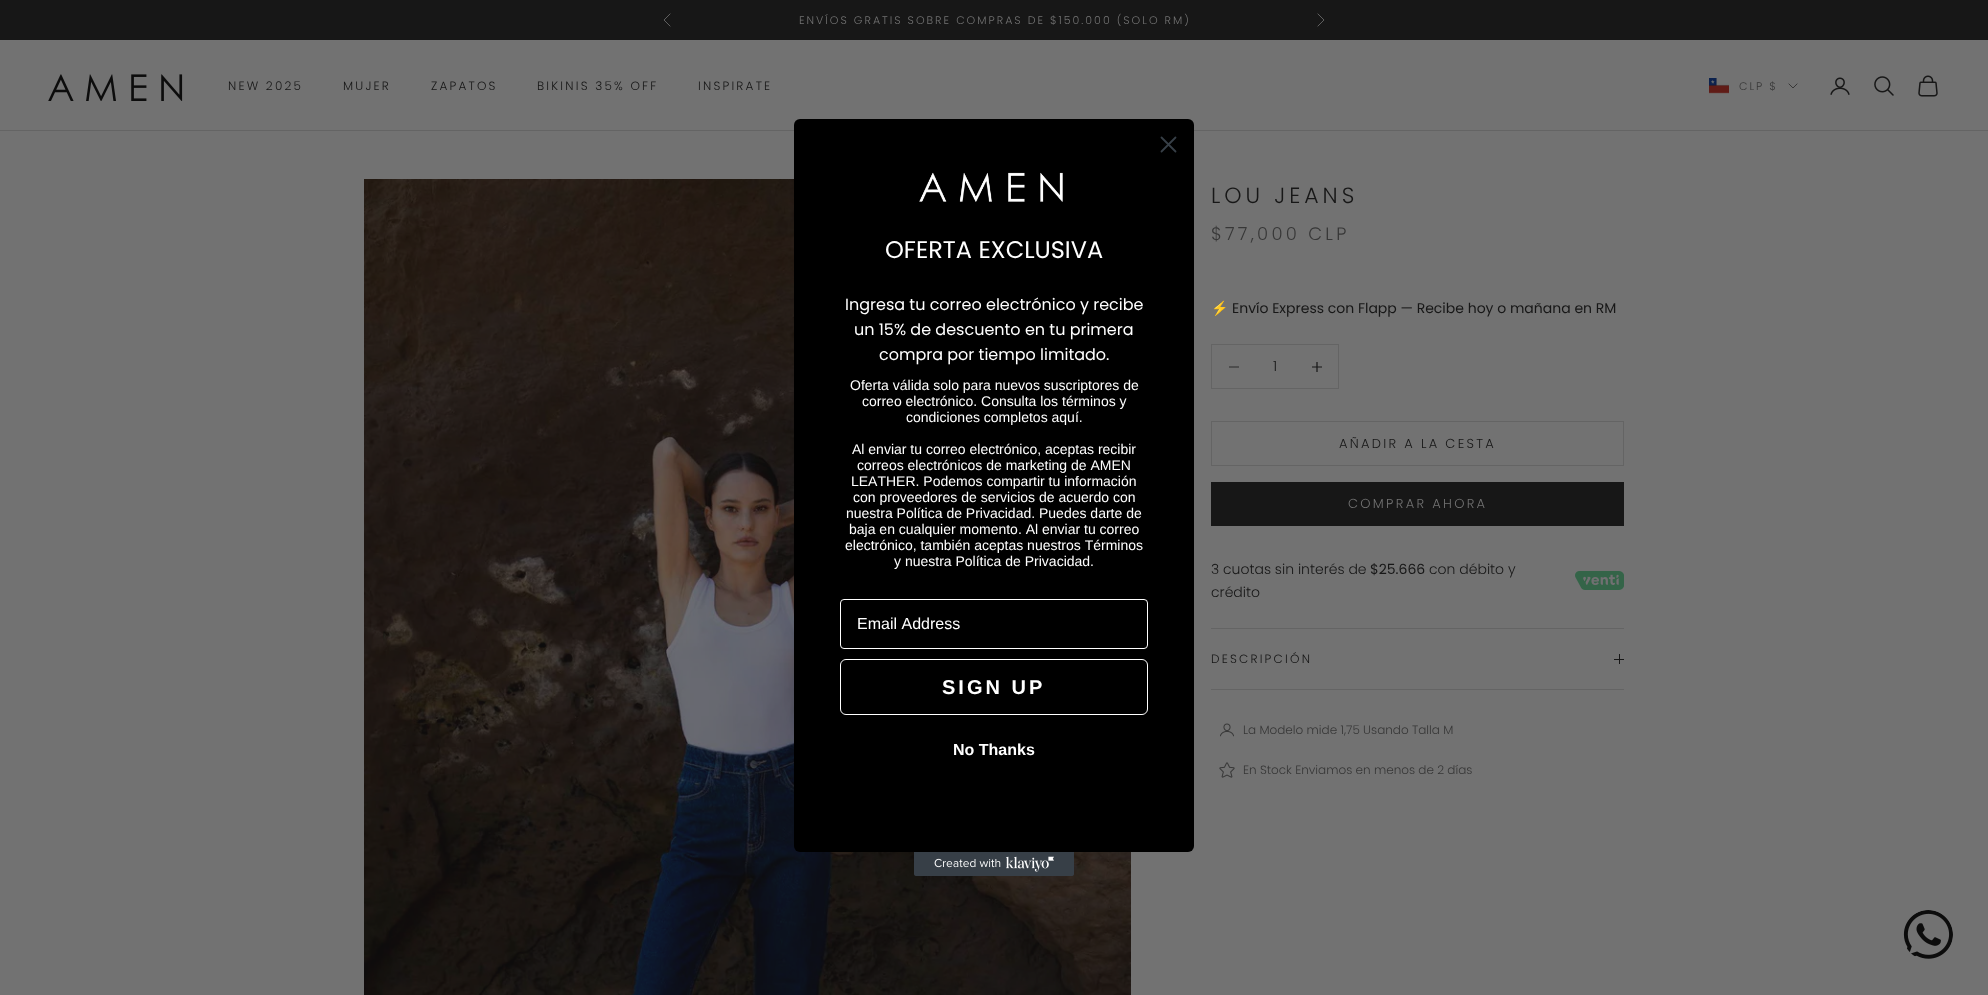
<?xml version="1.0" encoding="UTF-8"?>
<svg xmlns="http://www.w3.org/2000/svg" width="1988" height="995">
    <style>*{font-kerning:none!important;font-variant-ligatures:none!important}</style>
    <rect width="100%" height="100%" fill="#727272"/>
    <rect x="0" y="0" width="1988" height="40" fill="#171717"/>
    <path d="M 670 14 L 664 20 L 670 26" fill="none" stroke="#727272" stroke-width="0.8" stroke-linecap="square"/>
    <text x="799" y="24" font-family="Poppins" font-size="11" font-weight="300" letter-spacing="2" fill="#727272">ENVÍOS GRATIS SOBRE COMPRAS DE $150.000 (SOLO RM)</text>
    <path d="M 1318 26 L 1324 20 L 1318 14" fill="none" stroke="#727272" stroke-width="0.8" stroke-linecap="square"/>
    <rect x="0" y="130" width="1988" height="1" fill="#646464"/>
    <image x="48" y="74" width="135" height="27" href="img_01.png"/>
    <text x="228" y="90" font-family="Poppins" font-size="12" font-weight="300" letter-spacing="2.2" fill="#171717">NEW 2025</text>
    <text x="343" y="90" font-family="Poppins" font-size="12" font-weight="300" letter-spacing="2.2" fill="#171717">MUJER</text>
    <text x="431" y="90" font-family="Poppins" font-size="12" font-weight="300" letter-spacing="2.2" fill="#171717">ZAPATOS</text>
    <text x="537" y="90" font-family="Poppins" font-size="12" font-weight="300" letter-spacing="2.2" fill="#171717">BIKINIS 35% OFF</text>
    <text x="698" y="90" font-family="Poppins" font-size="12" font-weight="300" letter-spacing="2.2" fill="#171717">INSPIRATE</text>
    <image x="1709" y="78" width="20" height="16" href="img_02.png"/>
    <text x="1739" y="90" font-family="Poppins" font-size="11" font-weight="300" letter-spacing="2" fill="#373737">CLP $</text>
    <path d="M 1789 84 L 1793 88 L 1797 84" fill="none" stroke="#373737" stroke-linecap="square"/>
    <image x="1830" y="77" width="20" height="18" href="img_03.png"/>
    <image x="1874" y="76" width="20" height="20" href="img_04.png"/>
    <image x="1918" y="75" width="20" height="22" href="img_05.png"/>
    <image x="364" y="179" width="767" height="816" href="img_08.png"/>
    <rect x="794" y="119" width="400" height="733" rx="6" fill="#000000"/>
    <path d="M 1161.5 137.5 L 1175.5 151.5 M 1161.5 151.5 L 1175.5 137.5 Z" fill="none" stroke="#373F47" stroke-width="1.8" stroke-linecap="round" stroke-linejoin="round"/>
    <image x="919" y="172" width="144" height="30" href="img_06.png"/>
    <text x="885" y="258" font-family="Poppins" font-size="24" fill="#FFFFFF">OFERTA EXCLUSIVA</text>
    <text x="845" y="310" font-family="Poppins" font-size="16" fill="#FFFFFF">Ingresa tu correo electrónico y recibe</text>
    <text x="854" y="335" font-family="Poppins" font-size="16" fill="#FFFFFF">un 15% de descuento en tu primera</text>
    <text x="879" y="360" font-family="Poppins" font-size="16" fill="#FFFFFF">compra por tiempo limitado.</text>
    <text x="850" y="390" font-family="Liberation Sans" font-size="14" fill="#FFFFFF">Oferta válida solo para nuevos suscriptores de</text>
    <text x="862" y="406" font-family="Liberation Sans" font-size="14" fill="#FFFFFF">correo electrónico. Consulta los términos y</text>
    <text x="906" y="422" font-family="Liberation Sans" font-size="14" fill="#FFFFFF">condiciones completos aquí.</text>
    <text x="852" y="454" font-family="Liberation Sans" font-size="14" fill="#FFFFFF">Al enviar tu correo electrónico, aceptas recibir</text>
    <text x="857" y="470" font-family="Liberation Sans" font-size="14" fill="#FFFFFF">correos electrónicos de marketing de AMEN</text>
    <text x="851" y="486" font-family="Liberation Sans" font-size="14" fill="#FFFFFF">LEATHER. Podemos compartir tu información</text>
    <text x="853" y="502" font-family="Liberation Sans" font-size="14" fill="#FFFFFF">con proveedores de servicios de acuerdo con</text>
    <text x="846" y="518" font-family="Liberation Sans" font-size="14" fill="#FFFFFF">nuestra Política de Privacidad. Puedes darte de</text>
    <text x="849" y="534" font-family="Liberation Sans" font-size="14" fill="#FFFFFF">baja en cualquier momento. Al enviar tu correo</text>
    <text x="845" y="550" font-family="Liberation Sans" font-size="14" fill="#FFFFFF">electrónico, también aceptas nuestros Términos</text>
    <text x="894" y="566" font-family="Liberation Sans" font-size="14" fill="#FFFFFF">y nuestra Política de Privacidad.</text>
    <rect x="840.5" y="599.5" width="307" height="49" rx="3.5" fill="none" stroke="#FFFFFF"/>
    <text x="857" y="629" font-family="Liberation Sans" font-size="16" fill="#FFFFFF">Email Address</text>
    <rect x="840.5" y="659.5" width="307" height="55" rx="5.5" fill="none" stroke="#FFFFFF"/>
    <text x="942" y="694" font-family="Liberation Sans" font-size="20" font-weight="700" letter-spacing="3" fill="#FFFFFF">SIGN UP</text>
    <text x="953" y="755" font-family="Liberation Sans" font-size="16" font-weight="700" fill="#FFFFFF">No Thanks</text>
    <image x="914" y="852" width="160" height="24" href="img_07.png"/>
    <text x="1211" y="203" font-family="Poppins" font-size="22" font-weight="300" letter-spacing="4" fill="#171717">LOU JEANS</text>
    <text x="1211" y="240" font-family="Poppins" font-size="18" font-weight="300" letter-spacing="3.25" fill="#373737">$77,000 CLP</text>
    <text x="1211" y="313" font-family="Noto Color Emoji" font-size="14" fill="#171717">⚡</text>
    <text x="1232" y="313" font-family="Poppins" font-size="14" fill="#171717">Envío Express con Flapp — Recibe hoy o mañana en RM</text>
    <rect x="1211.5" y="344.5" width="127" height="44" fill="none" stroke="#646464"/>
    <path d="M 1229 367 H 1239" fill="none" stroke="#373737" stroke-width="1.2"/>
    <text x="1273" y="371" font-family="Poppins" font-size="14" font-weight="300" fill="#171717">1</text>
    <path d="M 1317 362 V 372 M 1312 367 H 1322" fill="none" stroke="#171717" stroke-width="1.2"/>
    <rect x="1211.5" y="421.5" width="412" height="44" fill="none" stroke="#646464"/>
    <text x="1339" y="448" font-family="Poppins" font-size="13" font-weight="300" letter-spacing="2.3" fill="#171717">AÑADIR A LA CESTA</text>
    <rect x="1211.5" y="482.5" width="412" height="43" fill="#171717" stroke="#171717"/>
    <text x="1348" y="508" font-family="Poppins" font-size="13" font-weight="300" letter-spacing="2.3" fill="#727272">COMPRAR AHORA</text>
    <text x="1211" y="574" font-family="Poppins" font-size="14" font-weight="300" fill="#171717">3 cuotas sin interés de</text>
    <text x="1370" y="574" font-family="Poppins" font-size="14" fill="#171717">$25.666</text>
    <text x="1429" y="574" font-family="Poppins" font-size="14" font-weight="300" fill="#171717">con débito y</text>
    <text x="1211" y="597" font-family="Poppins" font-size="14" font-weight="300" fill="#171717">crédito</text>
    <image x="1575" y="571" width="49" height="19" href="img_09.png"/>
    <rect x="1211" y="628" width="413" height="1" fill="#646464"/>
    <rect x="1211" y="689" width="413" height="1" fill="#646464"/>
    <text x="1211" y="663" font-family="Poppins" font-size="12" font-weight="300" letter-spacing="2.2" fill="#171717">DESCRIPCIÓN</text>
    <rect x="1619" y="654" width="1" height="10" fill="#171717"/>
    <rect x="1614" y="659" width="10" height="1" fill="#171717"/>
    <image x="1220" y="723" width="14" height="14" href="img_10.png"/>
    <text x="1243" y="734" font-family="Poppins" font-size="12" font-weight="300" fill="#373737">La Modelo mide 1,75 Usando Talla M</text>
    <image x="1219" y="762" width="16" height="16" href="img_11.png"/>
    <text x="1243" y="774" font-family="Poppins" font-size="12" font-weight="300" fill="#373737">En Stock Enviamos en menos de 2 días</text>
    <image x="1903" y="910" width="50" height="49" href="img_12.png"/>
</svg>
